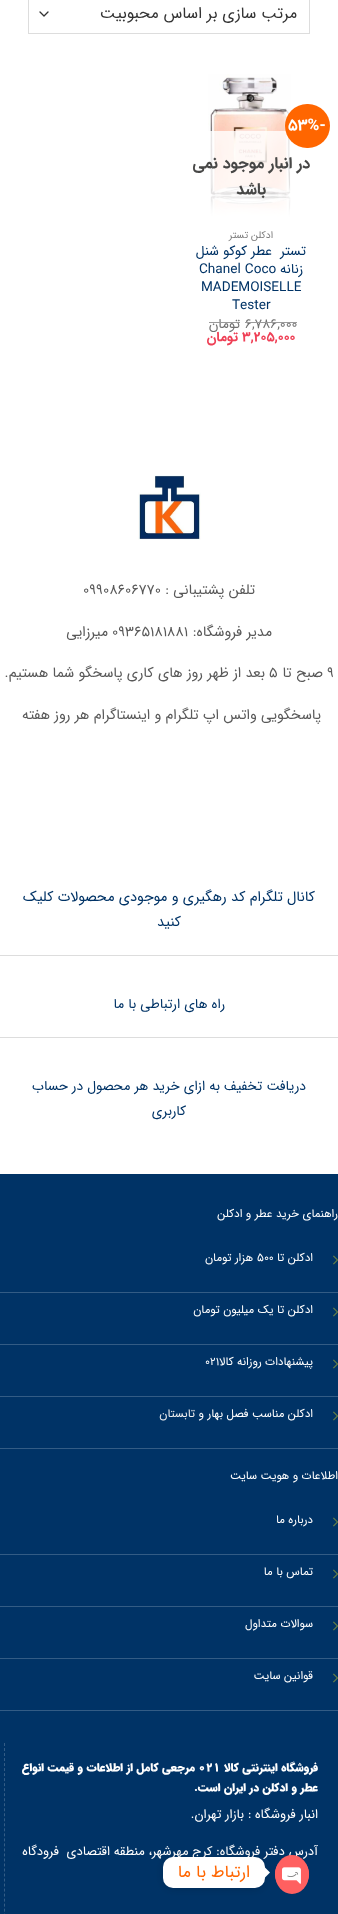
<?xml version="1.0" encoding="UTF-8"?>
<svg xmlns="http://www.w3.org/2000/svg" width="338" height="1914">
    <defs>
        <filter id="blur1" x="-50%" y="-200%" width="200%" height="500%"><feGaussianBlur stdDeviation="4"/></filter>
    </defs>
    <rect width="100%" height="100%" fill="#FFFFFF"/>
    <path d="M 40 12 L 44 16 L 48 12" fill="none" stroke="#333333" stroke-width="1.3" stroke-linecap="round" stroke-linejoin="round"/>
    <rect x="28.5" y="-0.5" width="281" height="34" fill="none" stroke="#DDDDDD"/>
    <text x="297" y="18" font-family="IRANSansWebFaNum" font-size="16" direction="rtl" fill="#333333">مرتب سازی بر اساس محبوبیت</text>
    <image x="208" y="74" width="83" height="143" href="img_01.png"/>
    <rect x="208" y="131" width="83" height="86" fill="#FFFFFF" fill-opacity="0.81"/>
    <rect x="285" y="104" width="45" height="44" rx="22" fill="#FF6600"/>
    <text x="288" y="130" font-family="IRANSansWebFaNum" font-size="16" font-weight="700" fill="#FFFFFF">53%-</text>
    <text x="310" y="168" font-family="IRANSansWebFaNum" font-size="16" font-weight="700" direction="rtl" fill="#474746">در انبار موجود نمی</text>
    <text x="266" y="194" font-family="IRANSansWebFaNum" font-size="16" font-weight="700" direction="rtl" fill="#474746">باشد</text>
    <text x="273" y="238" font-family="IRANSansWebFaNum" font-size="10" direction="rtl" fill="#7A7A7A">ادکلن تستر</text>
    <text x="306" y="255" font-family="IRANSansWebFaNum" font-size="13.6" direction="rtl" fill="#003366" xml:space="preserve">تستر  عطر کوکو شنل</text>
    <text x="303" y="273" font-family="IRANSansWebFaNum" font-size="13.6" direction="rtl" fill="#003366">زنانه</text>
    <text x="199" y="273" font-family="IRANSansWebFaNum" font-size="13.6" fill="#003366">Chanel Coco</text>
    <text x="201" y="291" font-family="IRANSansWebFaNum" font-size="13.6" fill="#003366">MADEMOISELLE</text>
    <text x="232" y="309" font-family="IRANSansWebFaNum" font-size="13.6" fill="#003366">Tester</text>
    <text x="245" y="328" font-family="IRANSansWebFaNum" font-size="13.6" fill="#707070">6,786,000</text>
    <rect x="245" y="322" width="52" height="1" fill="#9B9B9B"/>
    <text x="240" y="328" font-family="IRANSansWebFaNum" font-size="13.6" direction="rtl" fill="#707070">تومان</text>
    <rect x="209" y="322" width="31" height="1" fill="#9B9B9B"/>
    <text x="242" y="341" font-family="IRANSansWebFaNum" font-size="13.6" font-weight="700" fill="#EF4056">3,205,000</text>
    <text x="238" y="341" font-family="IRANSansWebFaNum" font-size="13.6" font-weight="700" direction="rtl" fill="#EF4056">تومان</text>
    <image x="138" y="475" width="63" height="65" href="img_02.png"/>
    <text x="255" y="594" font-family="IRANSansWebFaNum" font-size="14.4" direction="rtl" fill="#595959">تلفن پشتیبانی :</text>
    <text x="83" y="594" font-family="IRANSansWebFaNum" font-size="14.4" fill="#595959">09908606770</text>
    <text x="272" y="636" font-family="IRANSansWebFaNum" font-size="14.4" direction="rtl" fill="#595959">مدیر فروشگاه:</text>
    <text x="112" y="636" font-family="IRANSansWebFaNum" font-size="14.4" fill="#595959">09365181881</text>
    <text x="108" y="636" font-family="IRANSansWebFaNum" font-size="14.4" direction="rtl" fill="#595959">میرزایی</text>
    <text x="327" y="677" font-family="IRANSansWebFaNum" font-size="14.4" fill="#595959">9</text>
    <text x="323" y="677" font-family="IRANSansWebFaNum" font-size="14.4" direction="rtl" fill="#595959">صبح تا</text>
    <text x="269" y="677" font-family="IRANSansWebFaNum" font-size="14.4" fill="#595959">5</text>
    <text x="265" y="677" font-family="IRANSansWebFaNum" font-size="14.4" direction="rtl" fill="#595959">بعد از ظهر روز های کاری پاسخگو شما هستیم.</text>
    <text x="321" y="719" font-family="IRANSansWebFaNum" font-size="14.4" direction="rtl" fill="#595959">پاسخگویی واتس اپ تلگرام و اینستاگرام هر روز هفته</text>
    <text x="315" y="901" font-family="IRANSansWebFaNum" font-size="14.4" direction="rtl" fill="#003366">کانال تلگرام کد رهگیری و موجودی محصولات کلیک</text>
    <text x="181" y="926" font-family="IRANSansWebFaNum" font-size="14.4" direction="rtl" fill="#003366">کنید</text>
    <rect x="0" y="955" width="338" height="1" fill="#DDDDDD"/>
    <text x="225" y="1008" font-family="IRANSansWebFaNum" font-size="13.6" direction="rtl" fill="#003366">راه های ارتباطی با ما</text>
    <rect x="0" y="1037" width="338" height="1" fill="#DDDDDD"/>
    <text x="306" y="1090" font-family="IRANSansWebFaNum" font-size="13.6" direction="rtl" fill="#003366">دریافت تخفیف به ازای خرید هر محصول در حساب</text>
    <text x="186" y="1115" font-family="IRANSansWebFaNum" font-size="13.6" direction="rtl" fill="#003366">کاربری</text>
    <rect x="0" y="1174" width="338" height="740" fill="#003366"/>
    <text x="338" y="1217" font-family="IRANSansWebFaNum" font-size="11.5" direction="rtl" fill="#FFFFFF">راهنمای خرید عطر و ادکلن</text>
    <rect x="0" y="1292" width="338" height="1" fill="#335C85"/>
    <image x="333" y="1255" width="5" height="10" href="img_03.png"/>
    <text x="313" y="1261" font-family="IRANSansWebFaNum" font-size="11.5" direction="rtl" fill="#FFFFFF">ادکلن تا</text>
    <text x="257" y="1261" font-family="IRANSansWebFaNum" font-size="11.5" fill="#FFFFFF">500</text>
    <text x="253" y="1261" font-family="IRANSansWebFaNum" font-size="11.5" direction="rtl" fill="#FFFFFF">هزار تومان</text>
    <rect x="0" y="1344" width="338" height="1" fill="#335C85"/>
    <image x="333" y="1307" width="5" height="10" href="img_03.png"/>
    <text x="313" y="1313" font-family="IRANSansWebFaNum" font-size="11.5" direction="rtl" fill="#FFFFFF">ادکلن تا یک میلیون تومان</text>
    <rect x="0" y="1396" width="338" height="1" fill="#335C85"/>
    <image x="333" y="1359" width="5" height="10" href="img_03.png"/>
    <text x="313" y="1365" font-family="IRANSansWebFaNum" font-size="11.5" direction="rtl" fill="#FFFFFF">پیشنهادات روزانه کالا</text>
    <text x="205" y="1365" font-family="IRANSansWebFaNum" font-size="11.5" fill="#FFFFFF">021</text>
    <rect x="0" y="1448" width="338" height="1" fill="#335C85"/>
    <image x="333" y="1411" width="5" height="10" href="img_03.png"/>
    <text x="313" y="1417" font-family="IRANSansWebFaNum" font-size="11.5" direction="rtl" fill="#FFFFFF">ادکلن مناسب فصل بهار و</text>
    <text x="195" y="1417" font-family="IRANSansWebFaNum" font-size="11.5" direction="rtl" fill="#F1F1F1">تابستان</text>
    <text x="338" y="1479" font-family="IRANSansWebFaNum" font-size="11.5" direction="rtl" fill="#FFFFFF">اطلاعات و هویت سایت</text>
    <rect x="0" y="1554" width="338" height="1" fill="#335C85"/>
    <image x="333" y="1517" width="5" height="10" href="img_03.png"/>
    <text x="313" y="1523" font-family="IRANSansWebFaNum" font-size="11.5" direction="rtl" fill="#FFFFFF">درباره ما</text>
    <rect x="0" y="1606" width="338" height="1" fill="#335C85"/>
    <image x="333" y="1569" width="5" height="10" href="img_03.png"/>
    <text x="313" y="1575" font-family="IRANSansWebFaNum" font-size="11.5" direction="rtl" fill="#FFFFFF">تماس با ما</text>
    <rect x="0" y="1658" width="338" height="1" fill="#335C85"/>
    <image x="333" y="1621" width="5" height="10" href="img_03.png"/>
    <text x="313" y="1627" font-family="IRANSansWebFaNum" font-size="11.5" direction="rtl" fill="#FFFFFF">سوالات متداول</text>
    <rect x="0" y="1710" width="338" height="1" fill="#335C85"/>
    <image x="333" y="1673" width="5" height="10" href="img_03.png"/>
    <text x="313" y="1679" font-family="IRANSansWebFaNum" font-size="11.5" direction="rtl" fill="#FFFFFF">قوانین سایت</text>
    <text x="318" y="1771" font-family="IRANSansWebFaNum" font-size="11.5" font-weight="900" direction="rtl" fill="#FFFFFF">فروشگاه اینترنتی کالا</text>
    <text x="198" y="1771" font-family="IRANSansWebFaNum" font-size="11.5" font-weight="900" fill="#FFFFFF">021</text>
    <text x="195" y="1771" font-family="IRANSansWebFaNum" font-size="11.5" font-weight="900" direction="rtl" fill="#FFFFFF">مرجعی کامل از اطلاعات و قیمت انواع</text>
    <text x="318" y="1791" font-family="IRANSansWebFaNum" font-size="11.5" font-weight="900" direction="rtl" fill="#FFFFFF">عطر و ادکلن در ایران است.</text>
    <text x="318" y="1818" font-family="IRANSansWebFaNum" font-size="12.8" direction="rtl" fill="#FFFFFF">انبار فروشگاه : بازار تهران.</text>
    <text x="318" y="1855" font-family="IRANSansWebFaNum" font-size="12.8" direction="rtl" fill="#FFFFFF" xml:space="preserve">آدرس دفتر فروشگاه: کرج مهرشهر، منطقه اقتصادی  فرودگاه</text>
    <path d="M 4.5 1743 V 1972" fill="none" stroke="#335C85" stroke-dasharray="3 2.02"/>
    <rect x="163" y="1858" width="102" height="31" rx="10" fill="#000000" fill-opacity="0.15" filter="url(#blur1)"/>
    <ellipse cx="292" cy="1874.5" rx="17" ry="19.5" fill="#FF6060"/>
    <image x="275" y="1864" width="34" height="20" href="img_04.png"/>
    <rect x="163" y="1857" width="102" height="31" rx="10" fill="#FFFFFF"/>
    <path d="M 265 1877.5 V 1867.5 L 270 1872.5 Z" fill="#FFFFFF"/>
    <text x="250" y="1877" font-family="IRANSansWebFaNum" font-size="17" direction="rtl" fill="#FF6600">ارتباط با ما</text>
</svg>
